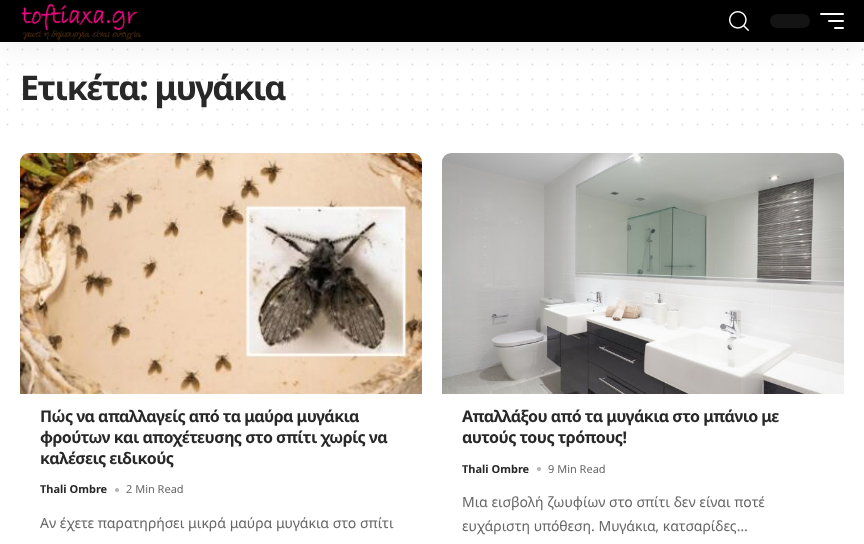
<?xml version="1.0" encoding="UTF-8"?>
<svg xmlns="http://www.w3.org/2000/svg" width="864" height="544">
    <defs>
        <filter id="blur1" x="-50%" y="-200%" width="200%" height="500%"><feGaussianBlur stdDeviation="15"/></filter>
    </defs>
    <rect width="100%" height="100%" fill="#FFFFFF"/>
    <path d="M 7.5 49.5 H 862.7" fill="none" stroke="#DFDFDF" stroke-width="2" stroke-linecap="round" stroke-dasharray="0 15"/>
    <path d="M 7.5 64.5 H 862.7" fill="none" stroke="#DFDFDF" stroke-width="2" stroke-linecap="round" stroke-dasharray="0 15"/>
    <text x="20" y="100" font-family="Noto Sans" font-size="34" font-weight="700" letter-spacing="-1.5" fill="#282828">Ετικέτα: μυγάκια</text>
    <path d="M 7.5 79.5 H 862.7" fill="none" stroke="#282828" stroke-opacity="0.15" stroke-width="2" stroke-linecap="round" stroke-dasharray="0 15"/>
    <rect x="0" y="4" width="864" height="42" fill="#000000" fill-opacity="0.07" filter="url(#blur1)"/>
    <rect x="0" y="0" width="864" height="42" fill="#000000"/>
    <image x="21" y="3" width="120" height="38" href="img_01.png"/>
    <image x="729" y="11" width="20" height="20" href="img_02.png"/>
    <rect x="770" y="14" width="40" height="14" rx="7" fill="#141414"/>
    <rect x="820" y="13" width="24" height="2" rx="1" fill="#FFFFFF"/>
    <rect x="828" y="20" width="16" height="2" rx="1" fill="#FFFFFF"/>
    <rect x="834" y="27" width="10" height="2" rx="1" fill="#FFFFFF"/>
    <path d="M 7.5 94.5 H 862.7" fill="none" stroke="#282828" stroke-opacity="0.15" stroke-width="2" stroke-linecap="round" stroke-dasharray="0 15"/>
    <path d="M 7.5 109.5 H 862.7" fill="none" stroke="#DFDFDF" stroke-width="2" stroke-linecap="round" stroke-dasharray="0 15"/>
    <path d="M 7.5 124.5 H 862.7" fill="none" stroke="#DFDFDF" stroke-width="2" stroke-linecap="round" stroke-dasharray="0 15"/>
    <image x="20" y="153" width="402" height="241" href="img_03.png"/>
    <text font-family="Noto Sans" font-size="16" font-weight="700" letter-spacing="-0.55" fill="#282828">
        <tspan x="40" y="422">Πώς να απαλλαγείς από τα μαύρα μυγάκια</tspan>
        <tspan x="40" y="443">φρούτων και αποχέτευσης στο σπίτι χωρίς να</tspan>
        <tspan x="40" y="464">καλέσεις ειδικούς</tspan>
    </text>
    <text x="40" y="493" font-family="Noto Sans" font-size="11" font-weight="700" fill="#282828">Thali Ombre</text>
    <circle cx="117" cy="490" r="2" fill="#B3B3B3"/>
    <text x="126" y="493" font-family="Noto Sans" font-size="11" fill="#666666">2 Min Read</text>
    <text x="40" y="528" font-family="Noto Sans" font-size="14" fill="#666666">Αν έχετε παρατηρήσει μικρά μαύρα μυγάκια στο σπίτι</text>
    <image x="442" y="153" width="402" height="241" href="img_04.png"/>
    <text font-family="Noto Sans" font-size="16" font-weight="700" letter-spacing="-0.55" fill="#282828">
        <tspan x="462" y="422">Απαλλάξου από τα μυγάκια στο μπάνιο με</tspan>
        <tspan x="462" y="443">αυτούς τους τρόπους!</tspan>
    </text>
    <text x="462" y="473" font-family="Noto Sans" font-size="11" font-weight="700" fill="#282828">Thali Ombre</text>
    <circle cx="539" cy="469" r="2" fill="#B3B3B3"/>
    <text x="548" y="473" font-family="Noto Sans" font-size="11" fill="#666666">9 Min Read</text>
    <text font-family="Noto Sans" font-size="14" fill="#666666">
        <tspan x="462" y="507">Μια εισβολή ζωυφίων στο σπίτι δεν είναι ποτέ</tspan>
        <tspan x="462" y="531">ευχάριστη υπόθεση. Μυγάκια, κατσαρίδες…</tspan>
    </text>
</svg>
